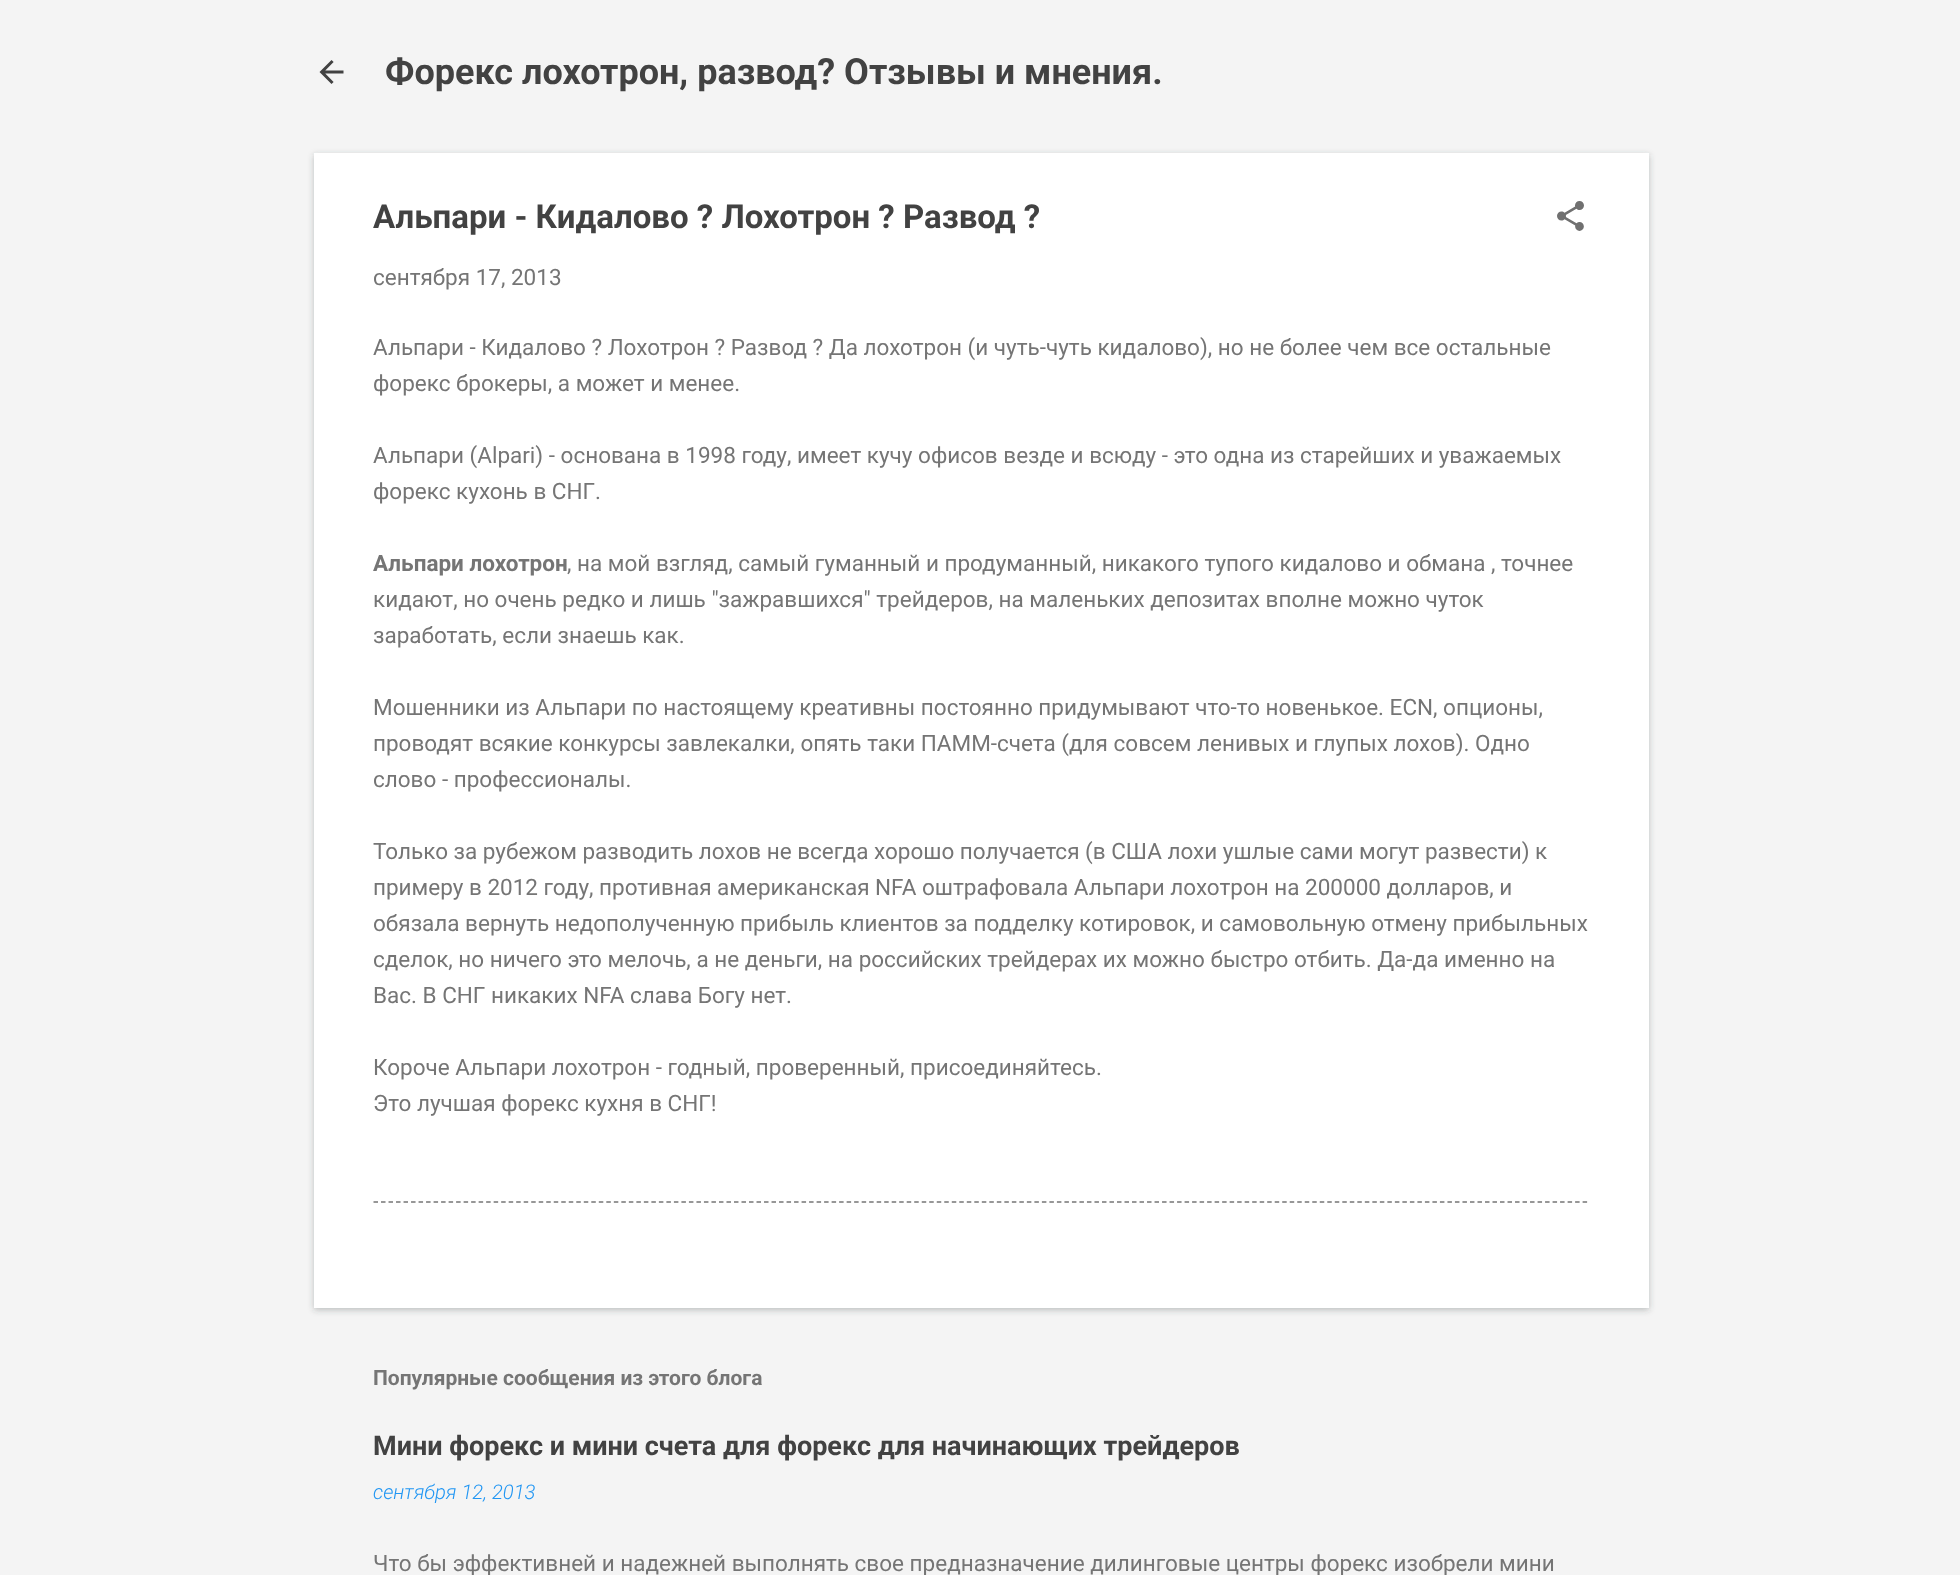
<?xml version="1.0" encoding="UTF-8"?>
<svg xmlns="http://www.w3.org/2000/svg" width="1960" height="1575">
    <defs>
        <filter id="blur1" x="-50%" y="-200%" width="200%" height="500%"><feGaussianBlur stdDeviation="3"/></filter>
    </defs>
    <rect width="100%" height="100%" fill="#F4F4F4"/>
    <image x="319" y="60" width="25" height="24" href="img_01.png"/>
    <text x="385" y="84" font-family="Roboto" font-size="36" font-weight="700" fill="#424242">Форекс лохотрон, развод? Отзывы и мнения.</text>
    <rect x="314" y="155" width="1335" height="1155" fill="#3C4043" fill-opacity="0.3" filter="url(#blur1)"/>
    <rect x="314" y="153" width="1335" height="1155" fill="#FFFFFF"/>
    <text x="373" y="228" font-family="Roboto" font-size="33" font-weight="700" fill="#424242">Альпари - Кидалово ? Лохотрон ? Развод ?</text>
    <image x="1557" y="201" width="27" height="30" href="img_02.png"/>
    <text x="373" y="285" font-family="Roboto" font-size="22.5" fill="#757575">сентября 17, 2013</text>
    <text font-family="Roboto" font-size="22.5" fill="#757575">
        <tspan x="373" y="355">Альпари - Кидалово ? Лохотрон ? Развод ? Да лохотрон (и чуть-чуть кидалово), но не более чем все остальные</tspan>
        <tspan x="373" y="391">форекс брокеры, а может и менее.</tspan>
    </text>
    <text font-family="Roboto" font-size="22.5" fill="#757575">
        <tspan x="373" y="463">Альпари (Alpari) - основана в 1998 году, имеет кучу офисов везде и всюду - это одна из старейших и уважаемых</tspan>
        <tspan x="373" y="499">форекс кухонь в СНГ.</tspan>
    </text>
    <text x="373" y="571" font-family="Roboto" font-size="22.5" font-weight="700" fill="#757575">Альпари лохотрон</text>
    <text x="567" y="571" font-family="Roboto" font-size="22.5" fill="#757575">, на мой взгляд, самый гуманный и продуманный, никакого тупого кидалово и обмана , точнее</text>
    <text font-family="Roboto" font-size="22.5" fill="#757575">
        <tspan x="373" y="607">кидают, но очень редко и лишь "зажравшихся" трейдеров, на маленьких депозитах вполне можно чуток</tspan>
        <tspan x="373" y="643">заработать, если знаешь как.</tspan>
    </text>
    <text font-family="Roboto" font-size="22.5" fill="#757575">
        <tspan x="373" y="715">Мошенники из Альпари по настоящему креативны постоянно придумывают что-то новенькое. ECN, опционы,</tspan>
        <tspan x="373" y="751">проводят всякие конкурсы завлекалки, опять таки ПАММ-счета (для совсем ленивых и глупых лохов). Одно</tspan>
        <tspan x="373" y="787">слово - профессионалы.</tspan>
    </text>
    <text font-family="Roboto" font-size="22.5" fill="#757575">
        <tspan x="373" y="859">Только за рубежом разводить лохов не всегда хорошо получается (в США лохи ушлые сами могут развести) к</tspan>
        <tspan x="373" y="895">примеру в 2012 году, противная американская NFA оштрафовала Альпари лохотрон на 200000 долларов, и</tspan>
        <tspan x="373" y="931">обязала вернуть недополученную прибыль клиентов за подделку котировок, и самовольную отмену прибыльных</tspan>
        <tspan x="373" y="967">сделок, но ничего это мелочь, а не деньги, на российских трейдерах их можно быстро отбить. Да-да именно на</tspan>
        <tspan x="373" y="1003">Вас. В СНГ никаких NFA слава Богу нет.</tspan>
    </text>
    <text font-family="Roboto" font-size="22.5" fill="#757575">
        <tspan x="373" y="1075">Короче Альпари лохотрон - годный, проверенный, присоединяйтесь.</tspan>
        <tspan x="373" y="1111">Это лучшая форекс кухня в СНГ!</tspan>
    </text>
    <path d="M 373.5 1202 H 1588.5" fill="none" stroke="#757575" stroke-width="1.5" stroke-dasharray="4.5 3.01"/>
    <text x="373" y="1385" font-family="Roboto" font-size="21" font-weight="700" fill="#757575">Популярные сообщения из этого блога</text>
    <text x="373" y="1455" font-family="Roboto" font-size="27" font-weight="700" fill="#424242">Мини форекс и мини счета для форекс для начинающих трейдеров</text>
    <text x="373" y="1499" font-family="Roboto" font-size="20.25" font-weight="300" font-style="italic" fill="#2196F3">сентября 12, 2013</text>
    <text x="373" y="1571" font-family="Roboto" font-size="22.5" fill="#757575">Что бы эффективней и надежней выполнять свое предназначение дилинговые центры форекс изобрели мини</text>
</svg>
